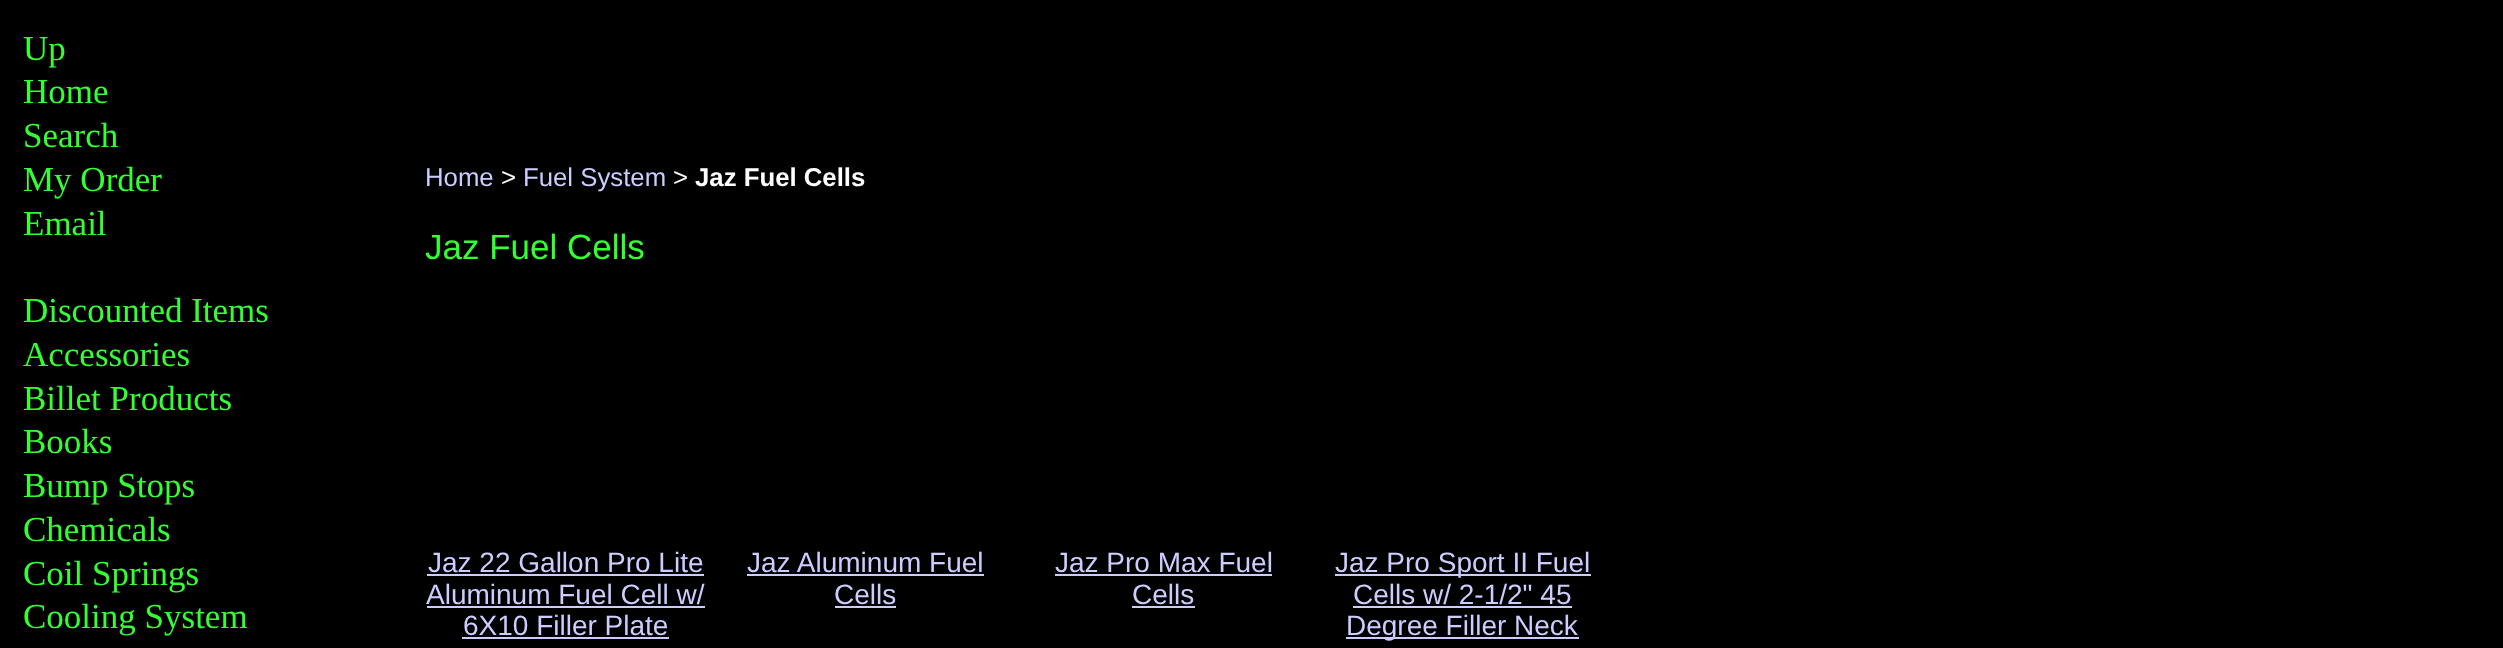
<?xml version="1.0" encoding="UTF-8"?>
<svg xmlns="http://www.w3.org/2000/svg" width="2503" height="648">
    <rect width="100%" height="100%" fill="#000000"/>
    <text font-family="Liberation Serif" font-size="35" fill="#33FF33">
        <tspan x="23" y="60">Up</tspan>
        <tspan x="23" y="103">Home</tspan>
        <tspan x="23" y="147">Search</tspan>
        <tspan x="23" y="191">My Order</tspan>
        <tspan x="23" y="235">Email</tspan>
    </text>
    <text font-family="Liberation Serif" font-size="35" fill="#33FF33">
        <tspan x="23" y="322">Discounted Items</tspan>
        <tspan x="23" y="366">Accessories</tspan>
        <tspan x="23" y="410">Billet Products</tspan>
        <tspan x="23" y="453">Books</tspan>
        <tspan x="23" y="497">Bump Stops</tspan>
        <tspan x="23" y="541">Chemicals</tspan>
        <tspan x="23" y="585">Coil Springs</tspan>
        <tspan x="23" y="628">Cooling System</tspan>
    </text>
    <text x="425" y="186" font-family="Liberation Sans" font-size="25.75" fill="#CCCCFF">Home</text>
    <text x="501" y="186" font-family="Liberation Sans" font-size="25.75" fill="#FFFFFF">&gt;</text>
    <text x="523" y="186" font-family="Liberation Sans" font-size="25.75" fill="#CCCCFF">Fuel System</text>
    <text x="673" y="186" font-family="Liberation Sans" font-size="25.75" fill="#FFFFFF">&gt;</text>
    <text x="695" y="186" font-family="Liberation Sans" font-size="25.75" font-weight="700" fill="#FFFFFF">Jaz Fuel Cells</text>
    <text x="425" y="259" font-family="Liberation Sans" font-size="35" fill="#33FF33">Jaz Fuel Cells</text>
    <text x="428" y="572" font-family="Liberation Sans" font-size="28" fill="#CCCCFF">Jaz 22 Gallon Pro Lite</text>
    <rect x="427" y="574" width="277" height="2" fill="#CCCCFF"/>
    <text x="426" y="604" font-family="Liberation Sans" font-size="28" fill="#CCCCFF">Aluminum Fuel Cell w/</text>
    <rect x="427" y="606" width="278" height="2" fill="#CCCCFF"/>
    <text x="463" y="635" font-family="Liberation Sans" font-size="28" fill="#CCCCFF">6X10 Filler Plate</text>
    <rect x="462" y="637" width="207" height="2" fill="#CCCCFF"/>
    <text x="747" y="572" font-family="Liberation Sans" font-size="28" fill="#CCCCFF">Jaz Aluminum Fuel</text>
    <rect x="747" y="574" width="237" height="2" fill="#CCCCFF"/>
    <text x="834" y="604" font-family="Liberation Sans" font-size="28" fill="#CCCCFF">Cells</text>
    <rect x="835" y="606" width="61" height="2" fill="#CCCCFF"/>
    <text x="1055" y="572" font-family="Liberation Sans" font-size="28" fill="#CCCCFF">Jaz Pro Max Fuel</text>
    <rect x="1055" y="574" width="217" height="2" fill="#CCCCFF"/>
    <text x="1132" y="604" font-family="Liberation Sans" font-size="28" fill="#CCCCFF">Cells</text>
    <rect x="1132" y="606" width="63" height="2" fill="#CCCCFF"/>
    <rect x="1335" y="574" width="256" height="2" fill="#CCCCFF"/>
    <text x="1335" y="572" font-family="Liberation Sans" font-size="28" fill="#CCCCFF">Jaz Pro Sport II Fuel</text>
    <text x="1353" y="604" font-family="Liberation Sans" font-size="28" fill="#CCCCFF">Cells w/ 2-1/2" 45</text>
    <rect x="1353" y="606" width="219" height="2" fill="#CCCCFF"/>
    <rect x="1346" y="637" width="233" height="2" fill="#CCCCFF"/>
    <text x="1346" y="635" font-family="Liberation Sans" font-size="28" fill="#CCCCFF">Degree Filler Neck</text>
</svg>
